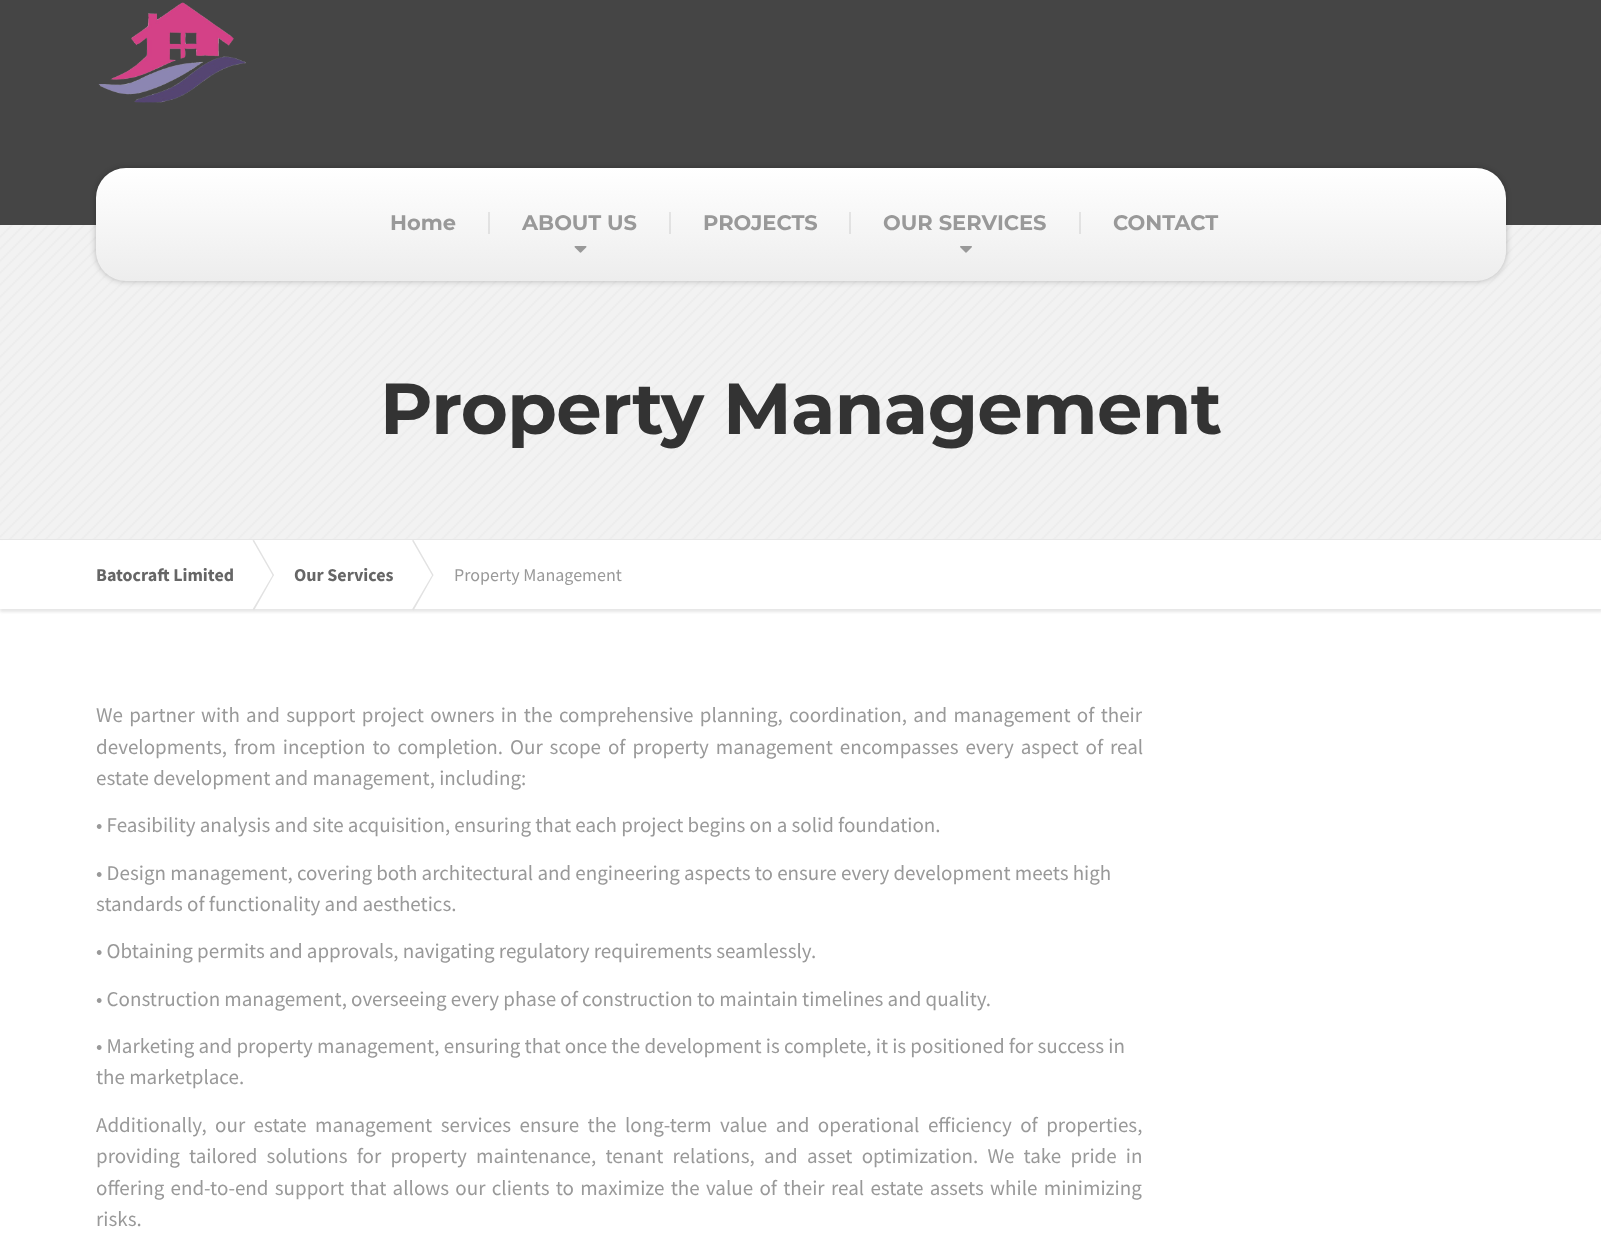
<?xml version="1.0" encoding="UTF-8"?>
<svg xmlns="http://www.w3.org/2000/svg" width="1601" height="1237">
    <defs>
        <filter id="blur1" x="-50%" y="-200%" width="200%" height="500%"><feGaussianBlur stdDeviation="3"/></filter>
        <linearGradient id="g1" gradientUnits="userSpaceOnUse" x1="801" y1="168" x2="801" y2="281"><stop offset="0" stop-color="#FFFFFF"/><stop offset="1" stop-color="#EDEDED"/></linearGradient>
        <filter id="blur2" x="-50%" y="-200%" width="200%" height="500%"><feGaussianBlur stdDeviation="1.5"/></filter>
    </defs>
    <rect width="100%" height="100%" fill="#FFFFFF"/>
    <rect x="0" y="0" width="1601" height="225" fill="#454545"/>
    <image x="98" y="2" width="148" height="101" href="img_01.png"/>
    <rect x="0" y="225" width="1601" height="314" fill="#F2F2F2"/>
    <image x="0" y="225" width="1601" height="314" href="img_04.png"/>
    <rect x="96" y="168" width="1410" height="113" rx="30" fill="#000000" fill-opacity="0.25" filter="url(#blur1)"/>
    <rect x="96" y="168" width="1410" height="113" rx="30" fill="url(#g1)"/>
    <text x="390" y="230" font-family="Montserrat" font-size="21" font-weight="700" fill="#999999">Home</text>
    <rect x="488" y="212" width="2" height="22" fill="#000000" fill-opacity="0.08"/>
    <text x="522" y="230" font-family="Montserrat" font-size="21" font-weight="700" fill="#999999">ABOUT US</text>
    <rect x="669" y="212" width="2" height="22" fill="#000000" fill-opacity="0.08"/>
    <image x="574" y="246" width="13" height="7" href="img_02.png"/>
    <text x="703" y="230" font-family="Montserrat" font-size="21" font-weight="700" fill="#999999">PROJECTS</text>
    <rect x="849" y="212" width="2" height="22" fill="#000000" fill-opacity="0.08"/>
    <text x="883" y="230" font-family="Montserrat" font-size="21" font-weight="700" fill="#999999">OUR SERVICES</text>
    <rect x="1079" y="212" width="2" height="22" fill="#000000" fill-opacity="0.08"/>
    <image x="960" y="246" width="12" height="7" href="img_03.png"/>
    <text x="1113" y="230" font-family="Montserrat" font-size="21" font-weight="700" fill="#999999">CONTACT</text>
    <rect x="0" y="539" width="1601" height="1" fill="#E6E6E6"/>
    <text x="380" y="434" font-family="Montserrat" font-size="72" font-weight="700" letter-spacing="-0.75" fill="#333333">Property Management</text>
    <rect x="0" y="543" width="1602" height="69" fill="#E6E6E6" filter="url(#blur2)"/>
    <rect x="0" y="541" width="1601" height="68" fill="#FFFFFF"/>
    <text x="96" y="581" font-family="Source Sans Pro" font-size="18" font-weight="700" fill="#666666">Batocraft Limited</text>
    <path d="M 252.5 540.5 L 254 540 L 274 575 L 273 576 Z" fill="#E2E2E2"/>
    <path d="M 273 574.5 L 274 575 L 254 610.5 L 252.5 609.5 Z" fill="#E2E2E2"/>
    <text x="294" y="581" font-family="Source Sans Pro" font-size="18" font-weight="700" fill="#666666">Our Services</text>
    <path d="M 412 540.5 L 413.5 540 L 433.5 575 L 432.5 576 Z" fill="#E2E2E2"/>
    <path d="M 432.5 574.5 L 433.5 575 L 413.5 610.5 L 412 609.5 Z" fill="#E2E2E2"/>
    <text x="454" y="581" font-family="Source Sans Pro" font-size="18" fill="#999999">Property Management</text>
    <text font-family="Source Sans Pro" font-size="21" fill="#999999">
        <tspan x="96" y="722" word-spacing="2.1">We partner with and support project owners in the comprehensive planning, coordination, and management of their</tspan>
        <tspan x="96" y="754" word-spacing="2.75">developments, from inception to completion. Our scope of property management encompasses every aspect of real</tspan>
        <tspan x="96" y="785">estate development and management, including:</tspan>
    </text>
    <text x="96" y="832" font-family="Source Sans Pro" font-size="21" fill="#999999">• Feasibility analysis and site acquisition, ensuring that each project begins on a solid foundation.</text>
    <text font-family="Source Sans Pro" font-size="21" fill="#999999">
        <tspan x="96" y="880">• Design management, covering both architectural and engineering aspects to ensure every development meets high</tspan>
        <tspan x="96" y="911">standards of functionality and aesthetics.</tspan>
    </text>
    <text x="96" y="958" font-family="Source Sans Pro" font-size="21" fill="#999999">• Obtaining permits and approvals, navigating regulatory requirements seamlessly.</text>
    <text x="96" y="1006" font-family="Source Sans Pro" font-size="21" fill="#999999">• Construction management, overseeing every phase of construction to maintain timelines and quality.</text>
    <text font-family="Source Sans Pro" font-size="21" fill="#999999">
        <tspan x="96" y="1053">• Marketing and property management, ensuring that once the development is complete, it is positioned for success in</tspan>
        <tspan x="96" y="1084">the marketplace.</tspan>
    </text>
    <text font-family="Source Sans Pro" font-size="21" fill="#999999">
        <tspan x="96" y="1132" word-spacing="4.25">Additionally, our estate management services ensure the long-term value and operational efficiency of properties,</tspan>
        <tspan x="96" y="1163" word-spacing="5">providing tailored solutions for property maintenance, tenant relations, and asset optimization. We take pride in</tspan>
        <tspan x="96" y="1195" word-spacing="2.1">offering end-to-end support that allows our clients to maximize the value of their real estate assets while minimizing</tspan>
        <tspan x="96" y="1226">risks.</tspan>
    </text>
</svg>
